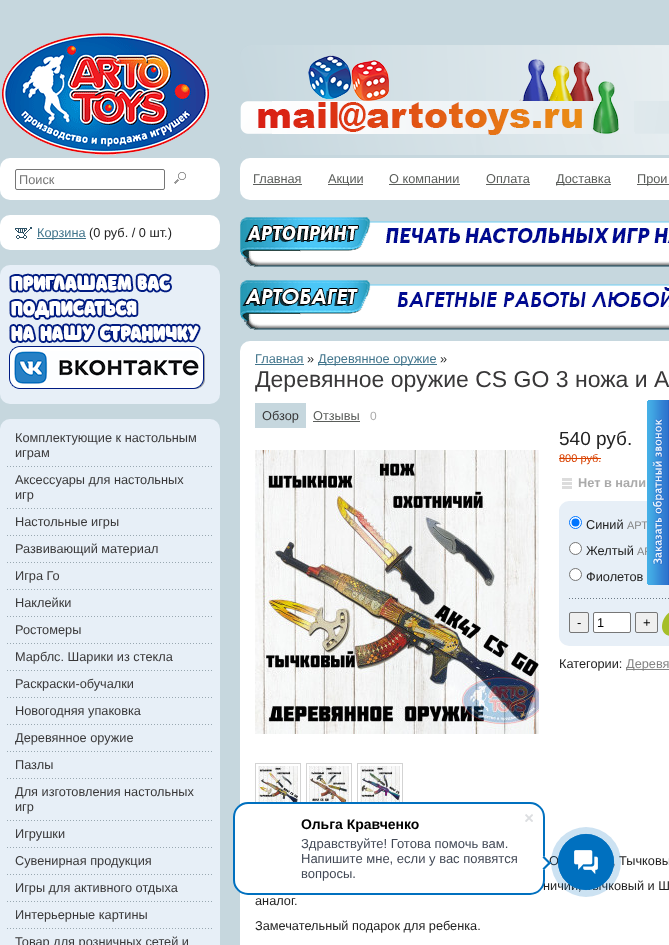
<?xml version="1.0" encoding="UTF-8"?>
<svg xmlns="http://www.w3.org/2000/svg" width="669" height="945">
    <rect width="100%" height="100%" fill="#C6D7DE"/>
    <image x="1" y="33" width="209" height="122" href="img_01.png"/>
    <image x="240" y="45" width="429" height="110" href="img_02.png"/>
    <rect x="0" y="158" width="220" height="42" rx="10" fill="#FFFFFF"/>
    <rect x="15.5" y="169.5" width="149" height="20" rx="1.5" fill="none" stroke="#767676"/>
    <text x="19" y="184" font-family="Liberation Sans" font-size="12.75" fill="#757575">Поиск</text>
    <image x="174" y="172" width="12" height="12" href="img_03.png"/>
    <rect x="0" y="215" width="220" height="35" rx="10" fill="#FFFFFF"/>
    <image x="15" y="227" width="17" height="12" href="img_04.png"/>
    <rect x="37" y="238" width="49" height="1" fill="#42758C"/>
    <text x="37" y="237" font-family="Liberation Sans" font-size="12.75" fill="#42758C">Корзина</text>
    <text x="89" y="237" font-family="Liberation Sans" font-size="12.75" fill="#232323">(0 руб. / 0 шт.)</text>
    <rect x="0" y="265" width="220" height="139" rx="10" fill="#E7EFF7"/>
    <image x="9" y="273" width="196" height="116" href="img_05.png"/>
    <rect x="0" y="419" width="220" height="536" rx="10" fill="#E7EFF7"/>
    <text font-family="Liberation Sans" font-size="12.75" fill="#393839">
        <tspan x="15" y="442">Комплектующие к настольным</tspan>
        <tspan x="15" y="457">играм</tspan>
    </text>
    <image x="7" y="466" width="205" height="1" href="img_06.png"/>
    <text font-family="Liberation Sans" font-size="12.75" fill="#393839">
        <tspan x="15" y="484">Аксессуары для настольных</tspan>
        <tspan x="15" y="499">игр</tspan>
    </text>
    <image x="7" y="508" width="205" height="1" href="img_06.png"/>
    <text x="15" y="526" font-family="Liberation Sans" font-size="12.75" fill="#393839">Настольные игры</text>
    <image x="7" y="535" width="205" height="1" href="img_06.png"/>
    <text x="15" y="553" font-family="Liberation Sans" font-size="12.75" fill="#393839">Развивающий материал</text>
    <image x="7" y="562" width="205" height="1" href="img_06.png"/>
    <text x="15" y="580" font-family="Liberation Sans" font-size="12.75" fill="#393839">Игра Го</text>
    <image x="7" y="589" width="205" height="1" href="img_06.png"/>
    <text x="15" y="607" font-family="Liberation Sans" font-size="12.75" fill="#393839">Наклейки</text>
    <image x="7" y="616" width="205" height="1" href="img_06.png"/>
    <text x="15" y="634" font-family="Liberation Sans" font-size="12.75" fill="#393839">Ростомеры</text>
    <image x="7" y="643" width="205" height="1" href="img_06.png"/>
    <text x="15" y="661" font-family="Liberation Sans" font-size="12.75" fill="#393839">Марблс. Шарики из стекла</text>
    <image x="7" y="670" width="205" height="1" href="img_06.png"/>
    <text x="15" y="688" font-family="Liberation Sans" font-size="12.75" fill="#393839">Раскраски-обучалки</text>
    <image x="7" y="697" width="205" height="1" href="img_06.png"/>
    <text x="15" y="715" font-family="Liberation Sans" font-size="12.75" fill="#393839">Новогодняя упаковка</text>
    <image x="7" y="724" width="205" height="1" href="img_06.png"/>
    <text x="15" y="742" font-family="Liberation Sans" font-size="12.75" fill="#393839">Деревянное оружие</text>
    <image x="7" y="751" width="205" height="1" href="img_06.png"/>
    <text x="15" y="769" font-family="Liberation Sans" font-size="12.75" fill="#393839">Пазлы</text>
    <image x="7" y="778" width="205" height="1" href="img_06.png"/>
    <text font-family="Liberation Sans" font-size="12.75" fill="#393839">
        <tspan x="15" y="796">Для изготовления настольных</tspan>
        <tspan x="15" y="811">игр</tspan>
    </text>
    <image x="7" y="820" width="205" height="1" href="img_06.png"/>
    <text x="15" y="838" font-family="Liberation Sans" font-size="12.75" fill="#393839">Игрушки</text>
    <image x="7" y="847" width="205" height="1" href="img_06.png"/>
    <text x="15" y="865" font-family="Liberation Sans" font-size="12.75" fill="#393839">Сувенирная продукция</text>
    <image x="7" y="874" width="205" height="1" href="img_06.png"/>
    <text x="15" y="892" font-family="Liberation Sans" font-size="12.75" fill="#393839">Игры для активного отдыха</text>
    <image x="7" y="901" width="205" height="1" href="img_06.png"/>
    <text x="15" y="919" font-family="Liberation Sans" font-size="12.75" fill="#393839">Интерьерные картины</text>
    <image x="7" y="928" width="205" height="1" href="img_06.png"/>
    <text x="15" y="946" font-family="Liberation Sans" font-size="12.75" fill="#393839">Товар для розничных сетей и</text>
    <rect x="240" y="158" width="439" height="42" rx="10" fill="#FFFFFF"/>
    <text x="253" y="183" font-family="Liberation Sans" font-size="12.75" fill="#5A5D5A">Главная</text>
    <rect x="253" y="184" width="49" height="1" fill="#5A5D5A"/>
    <rect x="328" y="184" width="35" height="1" fill="#5A5D5A"/>
    <text x="328" y="183" font-family="Liberation Sans" font-size="12.75" fill="#5A5D5A">Акции</text>
    <text x="389" y="183" font-family="Liberation Sans" font-size="12.75" fill="#5A5D5A">О компании</text>
    <rect x="389" y="184" width="71" height="1" fill="#5A5D5A"/>
    <text x="486" y="183" font-family="Liberation Sans" font-size="12.75" fill="#5A5D5A">Оплата</text>
    <rect x="486" y="184" width="44" height="1" fill="#5A5D5A"/>
    <rect x="556" y="184" width="55" height="1" fill="#5A5D5A"/>
    <text x="556" y="183" font-family="Liberation Sans" font-size="12.75" fill="#5A5D5A">Доставка</text>
    <rect x="637" y="184" width="32" height="1" fill="#5A5D5A"/>
    <text x="637" y="183" font-family="Liberation Sans" font-size="12.75" fill="#5A5D5A">Прои</text>
    <image x="240" y="217" width="429" height="50" href="img_07.png"/>
    <image x="240" y="280" width="429" height="50" href="img_08.png"/>
    <rect x="240" y="341" width="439" height="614" rx="10" fill="#FFFFFF"/>
    <text x="255" y="363" font-family="Liberation Sans" font-size="12.75" fill="#42758C">Главная</text>
    <rect x="255" y="364" width="49" height="1" fill="#42758C"/>
    <text x="307" y="363" font-family="Liberation Sans" font-size="12.75" fill="#232323">»</text>
    <rect x="318" y="364" width="119" height="1" fill="#42758C"/>
    <text x="318" y="363" font-family="Liberation Sans" font-size="12.75" fill="#42758C">Деревянное оружие</text>
    <text x="440" y="363" font-family="Liberation Sans" font-size="12.75" fill="#232323">»</text>
    <text x="255" y="387" font-family="Liberation Sans" font-size="23" fill="#393839">Деревянное оружие CS GO 3 ножа и А</text>
    <rect x="255" y="403" width="51" height="25" fill="#C6D7DE"/>
    <text x="262" y="420" font-family="Liberation Sans" font-size="12.75" fill="#393839">Обзор</text>
    <text x="313" y="420" font-family="Liberation Sans" font-size="12.75" fill="#5A5D5A">Отзывы</text>
    <rect x="313" y="421" width="47" height="1" fill="#5A5D5A"/>
    <text x="370" y="420" font-family="Liberation Sans" font-size="12" fill="#AAAAAA">0</text>
    <image x="255" y="450" width="284" height="284" href="img_09.png"/>
    <rect x="255.5" y="763.5" width="45" height="45" fill="none" stroke="#D3D3D3"/>
    <image x="258" y="766" width="40" height="36" href="img_10.png"/>
    <rect x="306.5" y="763.5" width="45" height="45" fill="none" stroke="#D3D3D3"/>
    <image x="309" y="766" width="40" height="36" href="img_11.png"/>
    <rect x="357.5" y="763.5" width="45" height="45" fill="none" stroke="#D3D3D3"/>
    <image x="360" y="766" width="40" height="36" href="img_12.png"/>
    <text x="559" y="445" font-family="Liberation Sans" font-size="19" fill="#232323">540 руб.</text>
    <text x="559" y="462" font-family="Liberation Sans" font-size="11" fill="#D94100">800 руб.</text>
    <rect x="559" y="458" width="42" height="1" fill="#D94100"/>
    <image x="562" y="478" width="10" height="11" href="img_13.png"/>
    <text x="578" y="487" font-family="Liberation Sans" font-size="12.75" font-weight="700" fill="#AAAAAA">Нет в нали</text>
    <rect x="559" y="501" width="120" height="145" rx="10" fill="#E7EFF7"/>
    <image x="569" y="598" width="100" height="1" href="img_14.png"/>
    <circle cx="575.5" cy="522.5" r="6" fill="#FFFFFF" stroke="#0075FF"/>
    <circle cx="575.5" cy="522.5" r="4" fill="#0075FF"/>
    <text x="586" y="529" font-family="Liberation Sans" font-size="12.75" fill="#232323">Синий</text>
    <text x="627" y="529" font-family="Liberation Sans" font-size="11" fill="#848484">АРТ</text>
    <circle cx="575.5" cy="548.5" r="6" fill="#FFFFFF" stroke="#767676"/>
    <text x="586" y="555" font-family="Liberation Sans" font-size="12.75" fill="#232323">Желтый</text>
    <text x="637" y="555" font-family="Liberation Sans" font-size="11" fill="#848484">АР</text>
    <circle cx="575.5" cy="574.5" r="6" fill="#FFFFFF" stroke="#767676"/>
    <text x="586" y="581" font-family="Liberation Sans" font-size="12.75" fill="#232323">Фиолетов</text>
    <rect x="569.5" y="612.5" width="19" height="20" rx="1.5" fill="#EFEFEF" stroke="#767676"/>
    <text x="577" y="627" font-family="Liberation Sans" font-size="13" fill="#000000">-</text>
    <rect x="593.5" y="612.5" width="37" height="20" rx="1.5" fill="#FFFFFF" stroke="#767676"/>
    <text x="597" y="627" font-family="Liberation Sans" font-size="12.75" fill="#000000">1</text>
    <rect x="635.5" y="612.5" width="22" height="20" rx="1.5" fill="#EFEFEF" stroke="#767676"/>
    <text x="643" y="627" font-family="Liberation Sans" font-size="13" fill="#000000">+</text>
    <path d="M 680 609 H 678 C 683 609 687 613 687 618 C 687 628 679 636 669 636 H 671 C 666 636 662 632 662 627 C 662 617 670 609 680 609 Z" fill="#A5BE29"/>
    <text x="559" y="668" font-family="Liberation Sans" font-size="12.75" fill="#232323">Категории:</text>
    <rect x="626" y="669" width="43" height="1" fill="#848484"/>
    <text x="626" y="668" font-family="Liberation Sans" font-size="12.75" fill="#848484">Деревя</text>
    <text x="549" y="865" font-family="Liberation Sans" font-size="12.75" fill="#232323">О</text>
    <text x="612" y="865" font-family="Liberation Sans" font-size="12.75" fill="#232323">, Тычковы</text>
    <text x="543" y="890" font-family="Liberation Sans" font-size="12.75" fill="#232323">ничий, Тычковый и Ш</text>
    <text font-family="Liberation Sans" font-size="12.75" fill="#232323">
        <tspan x="255" y="905">аналог.</tspan>
        <tspan x="255" y="930">Замечательный подарок для ребенка.</tspan>
    </text>
    <image x="647" y="400" width="22" height="185" href="img_15.png"/>
    <rect x="234" y="803" width="310" height="91" rx="14" fill="#FFFFFF" stroke="#0070BF" stroke-width="2"/>
    <image x="525" y="814" width="8" height="8" href="img_16.png"/>
    <text x="301" y="829" font-family="Liberation Sans" font-size="14" font-weight="700" fill="#000000">Ольга Кравченко</text>
    <text font-family="Liberation Sans" font-size="13" fill="#424956">
        <tspan x="301" y="848">Здравствуйте! Готова помочь вам.</tspan>
        <tspan x="301" y="863">Напишите мне, если у вас появятся</tspan>
        <tspan x="301" y="878">вопросы.</tspan>
    </text>
    <path d="M 537 863 L 544 856 L 551 863 L 544 870 Z" fill="#FFFFFF"/>
    <path d="M 542.5 857.5 L 544 856 L 551 863 L 549.5 864.5 Z" fill="#0070BF"/>
    <path d="M 542.5 868.5 L 549.5 861.5 L 551 863 L 544 870 Z" fill="#0070BF"/>
    <circle cx="586" cy="862" r="35" fill="#0070BF" fill-opacity="0.2"/>
    <circle cx="586" cy="862" r="27.6" fill="none" stroke="#0070BF" stroke-width="0.8"/>
    <circle cx="586" cy="862" r="28" fill="#0070BF"/>
    <image x="574" y="850" width="24" height="24" href="img_17.png"/>
</svg>
